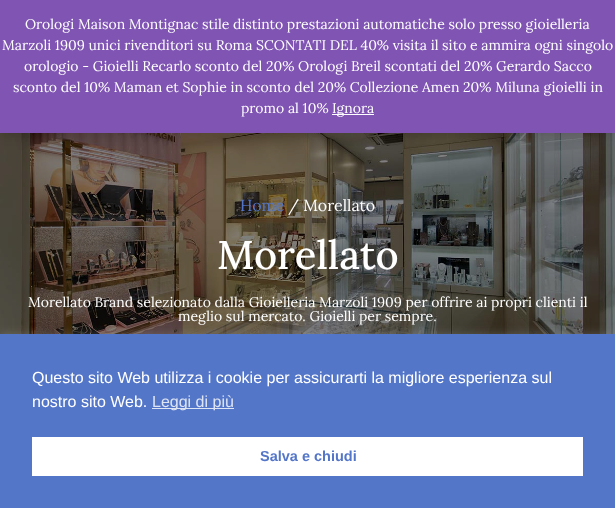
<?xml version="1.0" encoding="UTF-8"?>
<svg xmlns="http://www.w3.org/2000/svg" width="615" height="508">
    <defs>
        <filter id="blur1" x="-50%" y="-200%" width="200%" height="500%"><feGaussianBlur stdDeviation="7"/></filter>
        <filter id="blur2" x="-50%" y="-200%" width="200%" height="500%"><feGaussianBlur stdDeviation="5"/></filter>
    </defs>
    <rect width="100%" height="100%" fill="#FFFFFF"/>
    <image x="0" y="133" width="615" height="201" href="img_01.png"/>
    <rect x="0" y="1" width="615" height="133" fill="#000000" fill-opacity="0.2" filter="url(#blur1)"/>
    <rect x="0" y="0" width="615" height="133" fill="#7F54B3"/>
    <text x="25" y="29" font-family="Lora" font-size="14" fill="#FFFFFF">Orologi Maison Montignac stile distinto prestazioni automatiche solo presso gioielleria</text>
    <text x="2" y="50" font-family="Lora" font-size="14" fill="#FFFFFF">Marzoli 1909 unici rivenditori su Roma SCONTATI DEL 40% visita il sito e ammira ogni singolo</text>
    <text x="24" y="71" font-family="Lora" font-size="14" fill="#FFFFFF">orologio - Gioielli Recarlo sconto del 20% Orologi Breil scontati del 20% Gerardo Sacco</text>
    <text x="13" y="92" font-family="Lora" font-size="14" fill="#FFFFFF">sconto del 10% Maman et Sophie in sconto del 20% Collezione Amen 20% Miluna gioielli in</text>
    <text x="241" y="113" font-family="Lora" font-size="14" fill="#FFFFFF">promo al 10%</text>
    <rect x="332" y="114" width="42" height="1" fill="#FFFFFF"/>
    <text x="332" y="113" font-family="Lora" font-size="14" fill="#FFFFFF">Ignora</text>
    <text x="240" y="211" font-family="Lora" font-size="16" fill="#5476C8">Home</text>
    <text x="288" y="211" font-family="Lora" font-size="16" fill="#FFFFFF">/ Morellato</text>
    <text x="217" y="269" font-family="Lora" font-size="40" font-weight="500" fill="#FFFFFF">Morellato</text>
    <text x="28" y="307" font-family="Lora" font-size="14" fill="#FFFFFF">Morellato Brand selezionato dalla Gioielleria Marzoli 1909 per offrire ai propri clienti il</text>
    <text x="178" y="321" font-family="Lora" font-size="14" fill="#FFFFFF">meglio sul mercato. Gioielli per sempre.</text>
    <rect x="0" y="334" width="615" height="173" fill="#ACABAB" fill-opacity="0.3" filter="url(#blur2)"/>
    <rect x="0" y="334" width="615" height="174" fill="#5476C8"/>
    <text font-family="Liberation Sans" font-size="16" fill="#FFFFFF">
        <tspan x="32" y="383">Questo sito Web utilizza i cookie per assicurarti la migliore esperienza sul</tspan>
        <tspan x="32" y="407">nostro sito Web.</tspan>
    </text>
    <rect x="152" y="408" width="82" height="1" fill="#DDE4F4"/>
    <text x="152" y="407" font-family="Liberation Sans" font-size="16" fill="#DDE4F4">Leggi di più</text>
    <rect x="32" y="437" width="551" height="39" fill="#FFFFFF"/>
    <text x="260" y="461" font-family="Liberation Sans" font-size="14.5" font-weight="700" fill="#5476C8">Salva e chiudi</text>
</svg>
